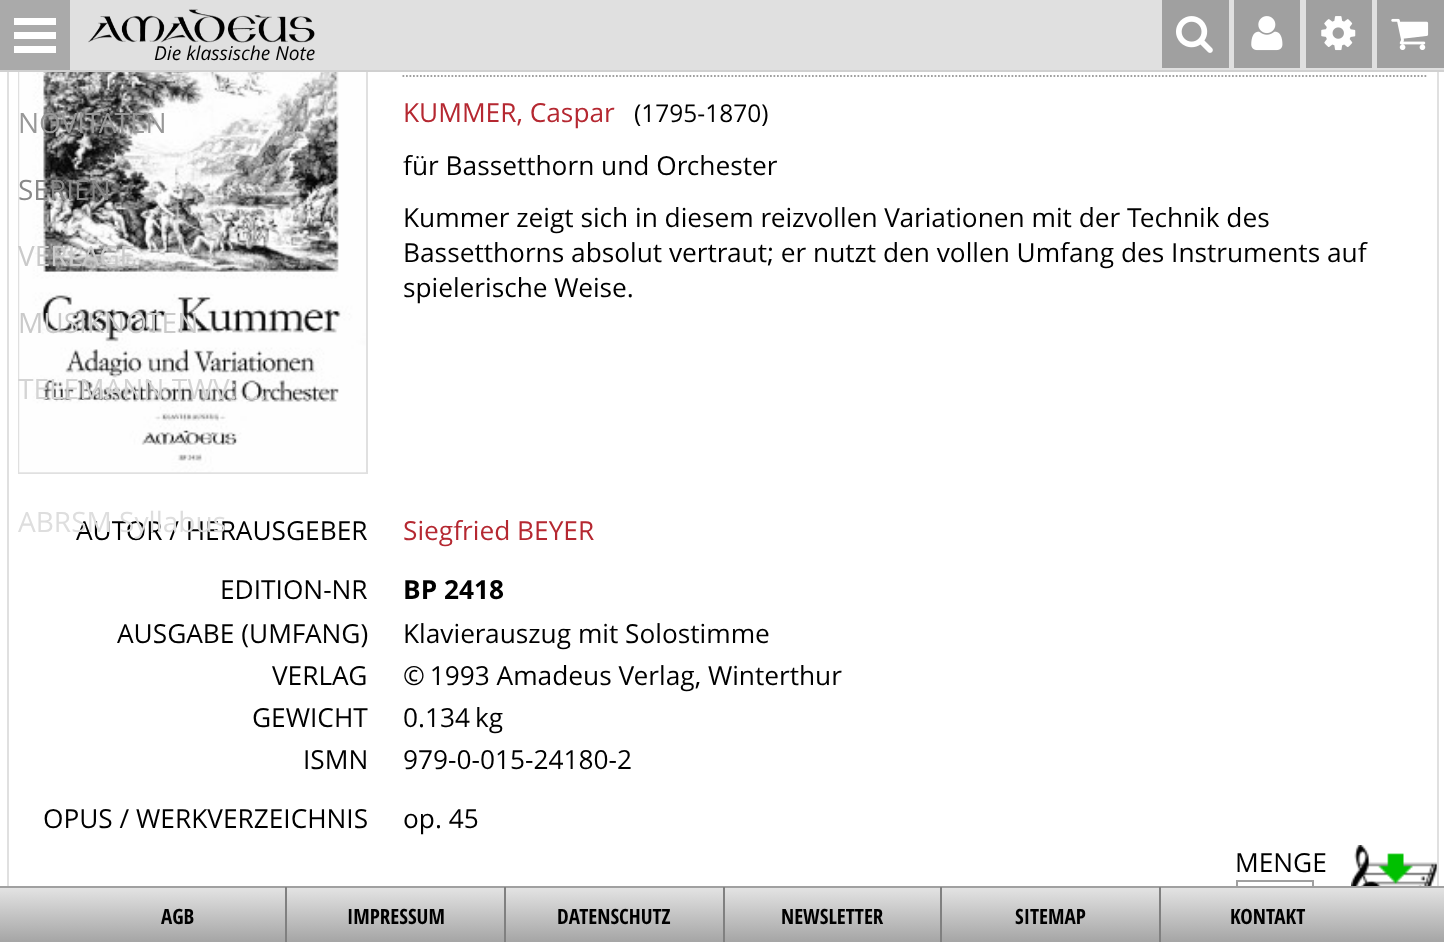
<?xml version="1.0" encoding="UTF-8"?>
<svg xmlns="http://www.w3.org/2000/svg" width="1444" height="942">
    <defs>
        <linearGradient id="g1" gradientUnits="userSpaceOnUse" x1="723" y1="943" x2="723" y2="887"><stop offset="0" stop-color="#A4A4A4"/><stop offset="1" stop-color="#E4E4E4"/></linearGradient>
    </defs>
    <rect width="100%" height="100%" fill="#FFFFFF"/>
    <rect x="19" y="15" width="348" height="458" fill="none" stroke="#E0E0E0" stroke-width="2"/>
    <rect x="70" y="0" width="1374" height="70" fill="#E0E0E0"/>
    <rect x="0" y="70" width="1444" height="2" fill="#D0D0D0"/>
    <image x="88" y="9" width="227" height="34" href="img_01.png"/>
    <text x="154" y="60" font-family="Open Sans" font-size="19.25" font-style="italic" fill="#000000">Die klassische Note</text>
    <rect x="1162" y="0" width="67" height="68" fill="#A0A0A0"/>
    <image x="1176" y="16" width="37" height="37" href="img_02.png"/>
    <rect x="1234" y="0" width="66" height="68" fill="#A0A0A0"/>
    <image x="1251" y="16" width="32" height="35" href="img_03.png"/>
    <rect x="1306" y="0" width="66" height="68" fill="#A0A0A0"/>
    <image x="1321" y="16" width="35" height="35" href="img_04.png"/>
    <rect x="1377" y="0" width="67" height="68" fill="#A0A0A0"/>
    <image x="1391" y="18" width="38" height="32" href="img_05.png"/>
    <rect x="0" y="0" width="70" height="70" fill="#AAAAAA"/>
    <rect x="14" y="46" width="42" height="7" fill="#FFFFFF"/>
    <rect x="14" y="32" width="42" height="7" fill="#FFFFFF"/>
    <rect x="14" y="18" width="42" height="7" fill="#FFFFFF"/>
    <image x="19" y="72" width="347" height="401" href="img_06.png"/>
    <text x="18" y="133" font-family="Open Sans" font-size="28" fill="#989898">NOVITÄTEN</text>
    <text x="18" y="200" font-family="Open Sans" font-size="28" fill="#898989">SERIEN</text>
    <text x="18" y="266" font-family="Open Sans" font-size="28" fill="#CACACA">VERLAGE</text>
    <text x="18" y="333" font-family="Open Sans" font-size="28" fill="#CACACA">MUSIKNOTEN</text>
    <text x="18" y="399" font-family="Open Sans" font-size="28" fill="#D4D4D4">TELEMANN TWV: ...</text>
    <text x="76" y="540" font-family="Open Sans" font-size="26.25" fill="#000000">AUTOR / HERAUSGEBER</text>
    <text x="18" y="532" font-family="Open Sans" font-size="28" fill="#DEDEDE">ABRSM Syllabus</text>
    <rect x="1437" y="72" width="2" height="814" fill="#E0E0E0"/>
    <rect x="7" y="72" width="2" height="814" fill="#E0E0E0"/>
    <path d="M 402.5 76 H 1428" fill="none" stroke="#A0A0A0" stroke-width="1.8" stroke-dasharray="1.75 1.75"/>
    <text x="403" y="122" font-family="Open Sans" font-size="26.25" fill="#B52831">KUMMER, Caspar</text>
    <text x="634" y="122" font-family="Open Sans" font-size="24.5" fill="#000000">(1795-1870)</text>
    <text font-family="Open Sans" font-size="26.25" fill="#000000">
        <tspan x="403" y="175">für Bassetthorn und Orchester</tspan>
        <tspan x="403" y="227">Kummer zeigt sich in diesem reizvollen Variationen mit der Technik des</tspan>
        <tspan x="403" y="262">Bassetthorns absolut vertraut; er nutzt den vollen Umfang des Instruments auf</tspan>
        <tspan x="403" y="297">spielerische Weise.</tspan>
    </text>
    <text x="403" y="540" font-family="Open Sans" font-size="26.25" fill="#B52831">Siegfried BEYER</text>
    <text x="220" y="599" font-family="Open Sans" font-size="26.25" fill="#000000">EDITION-NR</text>
    <text x="403" y="599" font-family="Open Sans" font-size="26.25" font-weight="700" fill="#000000">BP 2418</text>
    <text x="117" y="643" font-family="Open Sans" font-size="26.25" fill="#000000">AUSGABE (UMFANG)</text>
    <text x="403" y="643" font-family="Open Sans" font-size="26.25" fill="#000000">Klavierauszug mit Solostimme</text>
    <text x="272" y="685" font-family="Open Sans" font-size="26.25" fill="#000000">VERLAG</text>
    <text x="403" y="685" font-family="Open Sans" font-size="26.25" fill="#000000">© 1993 Amadeus Verlag, Winterthur</text>
    <text x="252" y="727" font-family="Open Sans" font-size="26.25" fill="#000000">GEWICHT</text>
    <text x="403" y="727" font-family="Open Sans" font-size="26.25" fill="#000000">0.134 kg</text>
    <text x="303" y="769" font-family="Open Sans" font-size="26.25" fill="#000000">ISMN</text>
    <text x="403" y="769" font-family="Open Sans" font-size="26.25" fill="#000000">979-0-015-24180-2</text>
    <text x="43" y="828" font-family="Open Sans" font-size="26.25" fill="#000000">OPUS / WERKVERZEICHNIS</text>
    <text x="403" y="828" font-family="Open Sans" font-size="26.25" fill="#000000">op. 45</text>
    <text x="1235" y="872" font-family="Open Sans" font-size="26.25" fill="#000000">MENGE</text>
    <rect x="1237" y="881" width="76" height="40" fill="none" stroke="#A0A0A0" stroke-width="2"/>
    <image x="1351" y="845" width="86" height="41" href="img_07.png"/>
    <rect x="0" y="888" width="1444" height="54" fill="url(#g1)"/>
    <rect x="0" y="886" width="1444" height="2" fill="#A0A0A0"/>
    <text x="161" y="924" font-family="Open Sans Condensed" font-size="21" font-weight="700" fill="#000000">AGB</text>
    <rect x="285" y="887" width="2" height="55" fill="#808080"/>
    <text x="347" y="924" font-family="Open Sans Condensed" font-size="21" font-weight="700" fill="#000000">IMPRESSUM</text>
    <rect x="504" y="887" width="2" height="55" fill="#808080"/>
    <text x="557" y="924" font-family="Open Sans Condensed" font-size="21" font-weight="700" fill="#000000">DATENSCHUTZ</text>
    <rect x="723" y="887" width="2" height="55" fill="#808080"/>
    <text x="781" y="924" font-family="Open Sans Condensed" font-size="21" font-weight="700" fill="#000000">NEWSLETTER</text>
    <rect x="940" y="887" width="2" height="55" fill="#808080"/>
    <text x="1015" y="924" font-family="Open Sans Condensed" font-size="21" font-weight="700" fill="#000000">SITEMAP</text>
    <rect x="1159" y="887" width="2" height="55" fill="#808080"/>
    <text x="1230" y="924" font-family="Open Sans Condensed" font-size="21" font-weight="700" fill="#000000">KONTAKT</text>
</svg>
